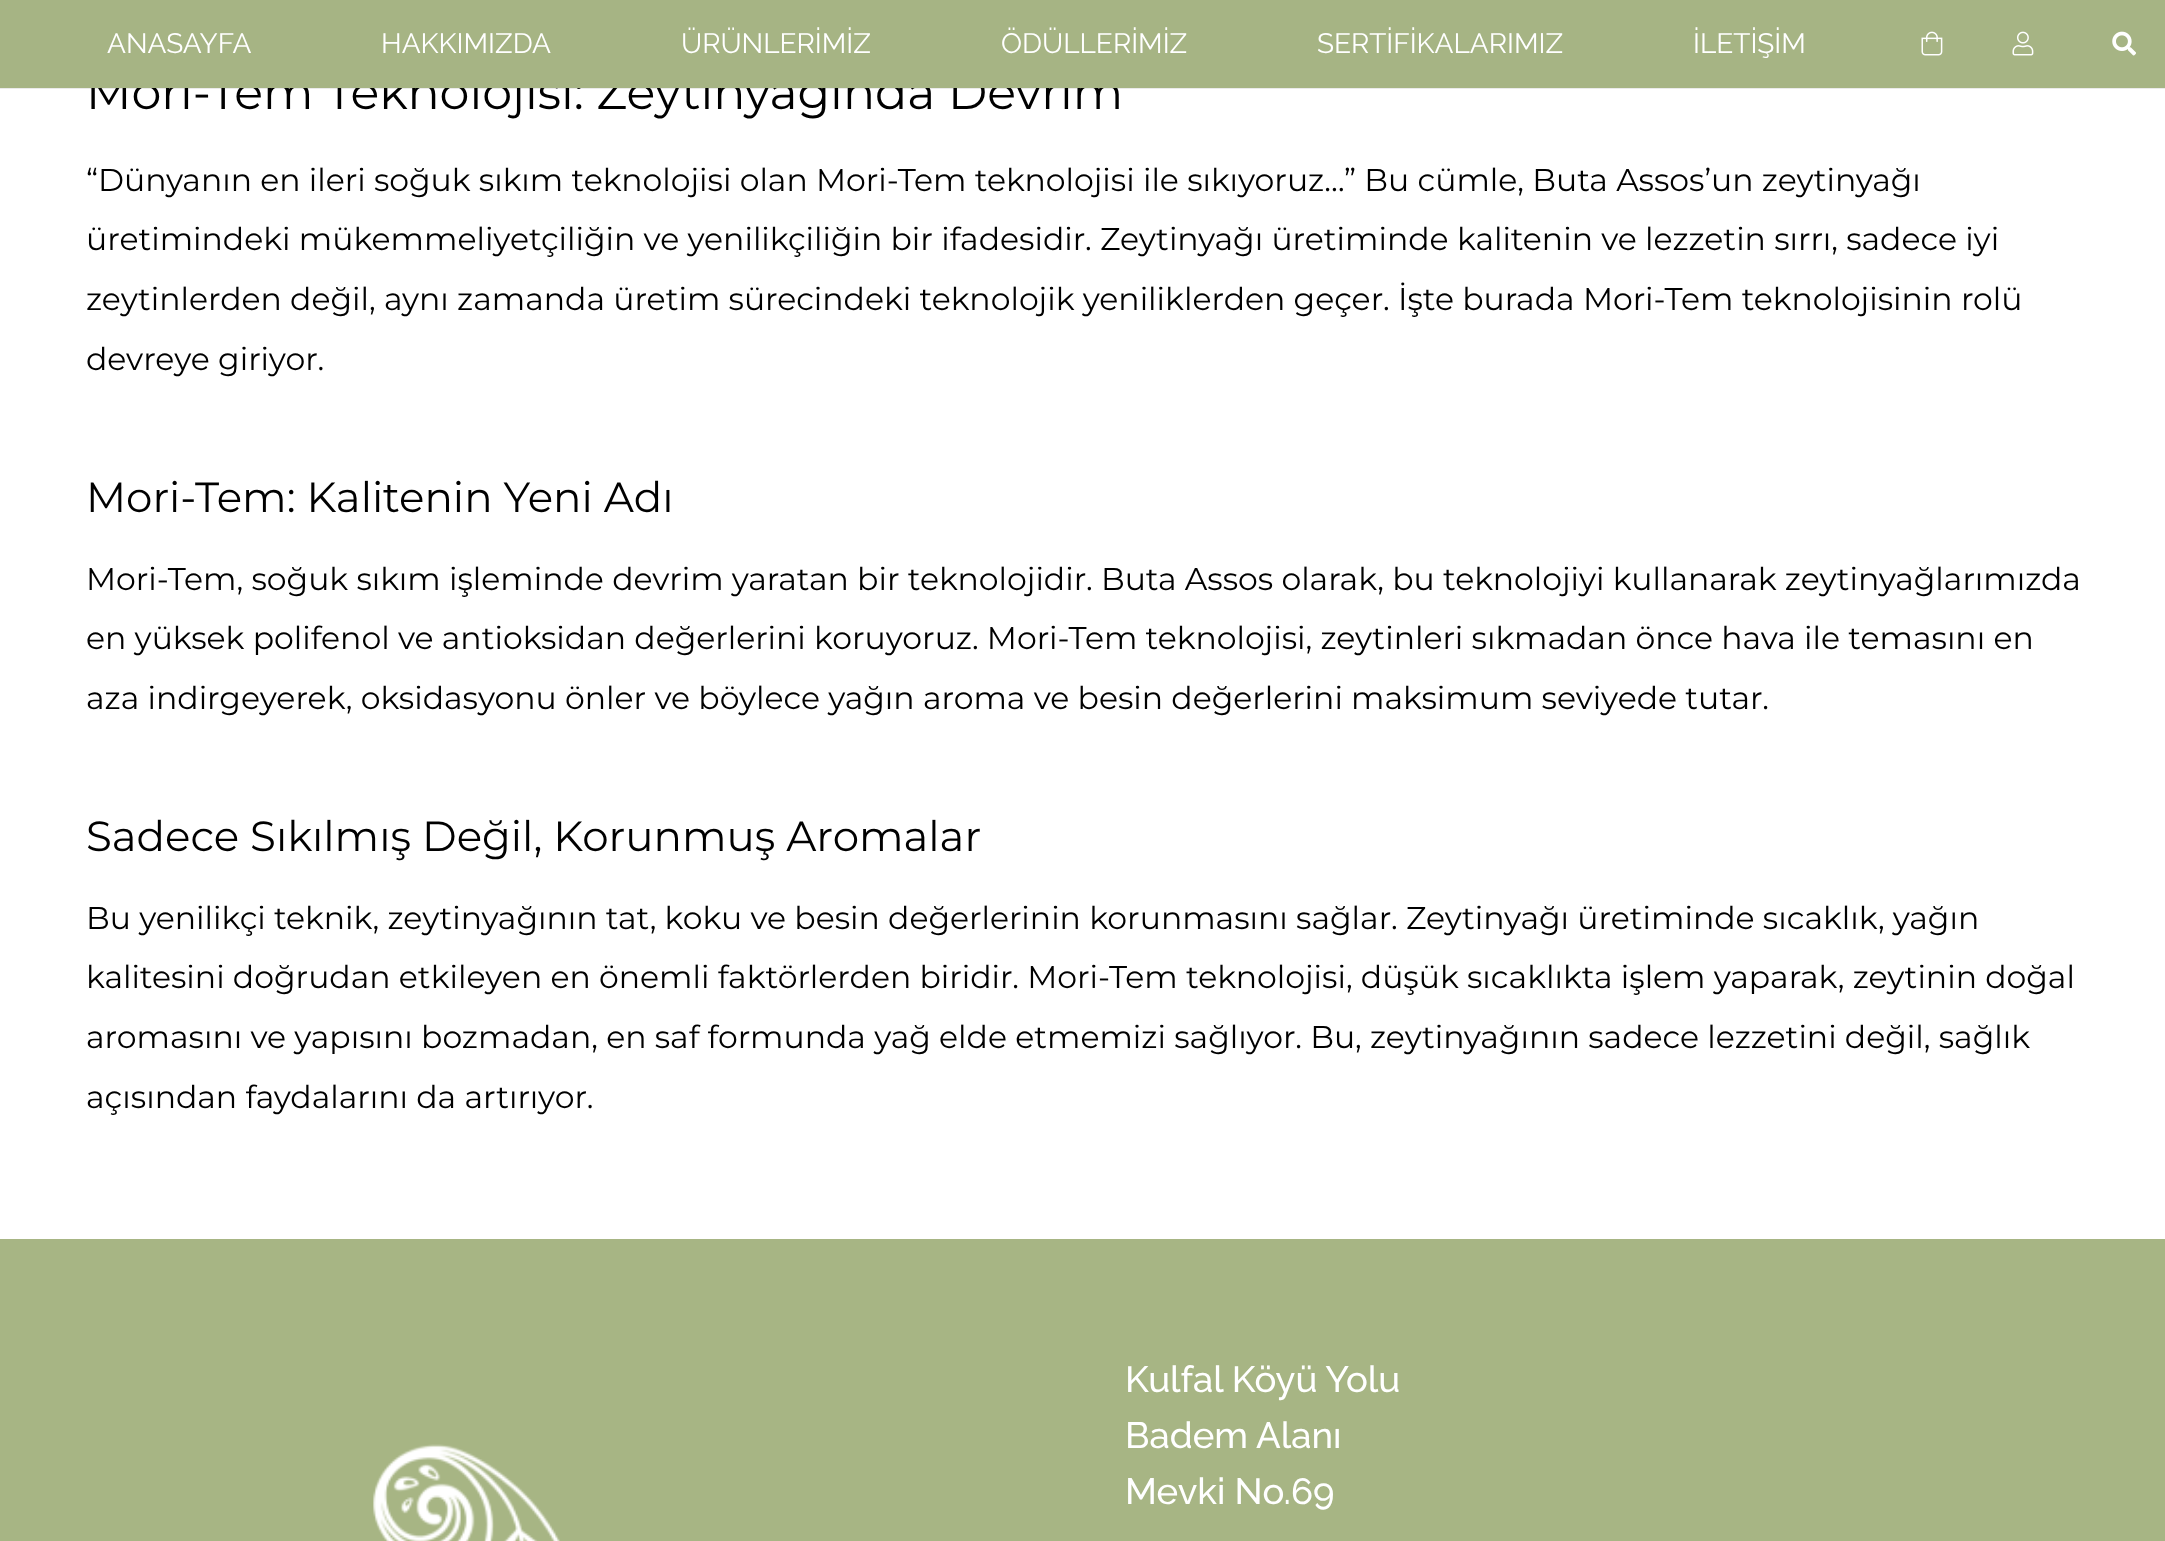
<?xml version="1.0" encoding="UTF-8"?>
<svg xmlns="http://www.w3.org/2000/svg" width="2165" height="1541">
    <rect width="100%" height="100%" fill="#FFFFFF"/>
    <path d="M 0 88 V 89 H 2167 V 2 H 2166 V 88 Z" fill="#000000" fill-opacity="0.08"/>
    <text x="86" y="109" font-family="Montserrat" font-size="47.6" fill="#000000">Mori-Tem Teknolojisi: Zeytinyağında Devrim</text>
    <rect x="0" y="0" width="2165" height="88" fill="#A6B484"/>
    <text x="107" y="53" font-family="Raleway" font-size="28" fill="#FFFFFF">ANASAYFA</text>
    <text x="381" y="53" font-family="Raleway" font-size="28" fill="#FFFFFF">HAKKIMIZDA</text>
    <text x="681" y="53" font-family="Raleway" font-size="28" fill="#FFFFFF">ÜRÜNLERİMİZ</text>
    <text x="1001" y="53" font-family="Raleway" font-size="28" fill="#FFFFFF">ÖDÜLLERİMİZ</text>
    <text x="1317" y="53" font-family="Raleway" font-size="28" fill="#FFFFFF">SERTİFİKALARIMIZ</text>
    <text x="1693" y="53" font-family="Raleway" font-size="28" fill="#FFFFFF">İLETİŞİM</text>
    <image x="1921" y="31" width="22" height="25" href="img_01.png"/>
    <image x="2012" y="31" width="22" height="25" href="img_02.png"/>
    <image x="2112" y="31" width="24" height="25" href="img_03.png"/>
    <text font-family="Montserrat" font-size="31.5" fill="#000000">
        <tspan x="86" y="191">“Dünyanın en ileri soğuk sıkım teknolojisi olan Mori-Tem teknolojisi ile sıkıyoruz…” Bu cümle, Buta Assos’un zeytinyağı</tspan>
        <tspan x="86" y="250">üretimindeki mükemmeliyetçiliğin ve yenilikçiliğin bir ifadesidir. Zeytinyağı üretiminde kalitenin ve lezzetin sırrı, sadece iyi</tspan>
        <tspan x="86" y="310">zeytinlerden değil, aynı zamanda üretim sürecindeki teknolojik yeniliklerden geçer. İşte burada Mori-Tem teknolojisinin rolü</tspan>
        <tspan x="86" y="370">devreye giriyor.</tspan>
    </text>
    <text x="86" y="512" font-family="Montserrat" font-size="42" fill="#000000">Mori-Tem: Kalitenin Yeni Adı</text>
    <text font-family="Montserrat" font-size="31.5" fill="#000000">
        <tspan x="86" y="590">Mori-Tem, soğuk sıkım işleminde devrim yaratan bir teknolojidir. Buta Assos olarak, bu teknolojiyi kullanarak zeytinyağlarımızda</tspan>
        <tspan x="86" y="649">en yüksek polifenol ve antioksidan değerlerini koruyoruz. Mori-Tem teknolojisi, zeytinleri sıkmadan önce hava ile temasını en</tspan>
        <tspan x="86" y="709">aza indirgeyerek, oksidasyonu önler ve böylece yağın aroma ve besin değerlerini maksimum seviyede tutar.</tspan>
    </text>
    <text x="86" y="851" font-family="Montserrat" font-size="42" fill="#000000">Sadece Sıkılmış Değil, Korunmuş Aromalar</text>
    <text font-family="Montserrat" font-size="31.5" fill="#000000">
        <tspan x="86" y="929">Bu yenilikçi teknik, zeytinyağının tat, koku ve besin değerlerinin korunmasını sağlar. Zeytinyağı üretiminde sıcaklık, yağın</tspan>
        <tspan x="86" y="988">kalitesini doğrudan etkileyen en önemli faktörlerden biridir. Mori-Tem teknolojisi, düşük sıcaklıkta işlem yaparak, zeytinin doğal</tspan>
        <tspan x="86" y="1048">aromasını ve yapısını bozmadan, en saf formunda yağ elde etmemizi sağlıyor. Bu, zeytinyağının sadece lezzetini değil, sağlık</tspan>
        <tspan x="86" y="1108">açısından faydalarını da artırıyor.</tspan>
    </text>
    <rect x="0" y="1239" width="2165" height="302" fill="#A7B584"/>
    <image x="373" y="1444" width="187" height="97" href="img_04.png"/>
    <text font-family="Raleway" font-size="36.5" font-weight="500" fill="#FFFFFF">
        <tspan x="1125" y="1392">Kulfal Köyü Yolu</tspan>
        <tspan x="1125" y="1448">Badem Alanı</tspan>
        <tspan x="1125" y="1504">Mevki No.69</tspan>
    </text>
</svg>
